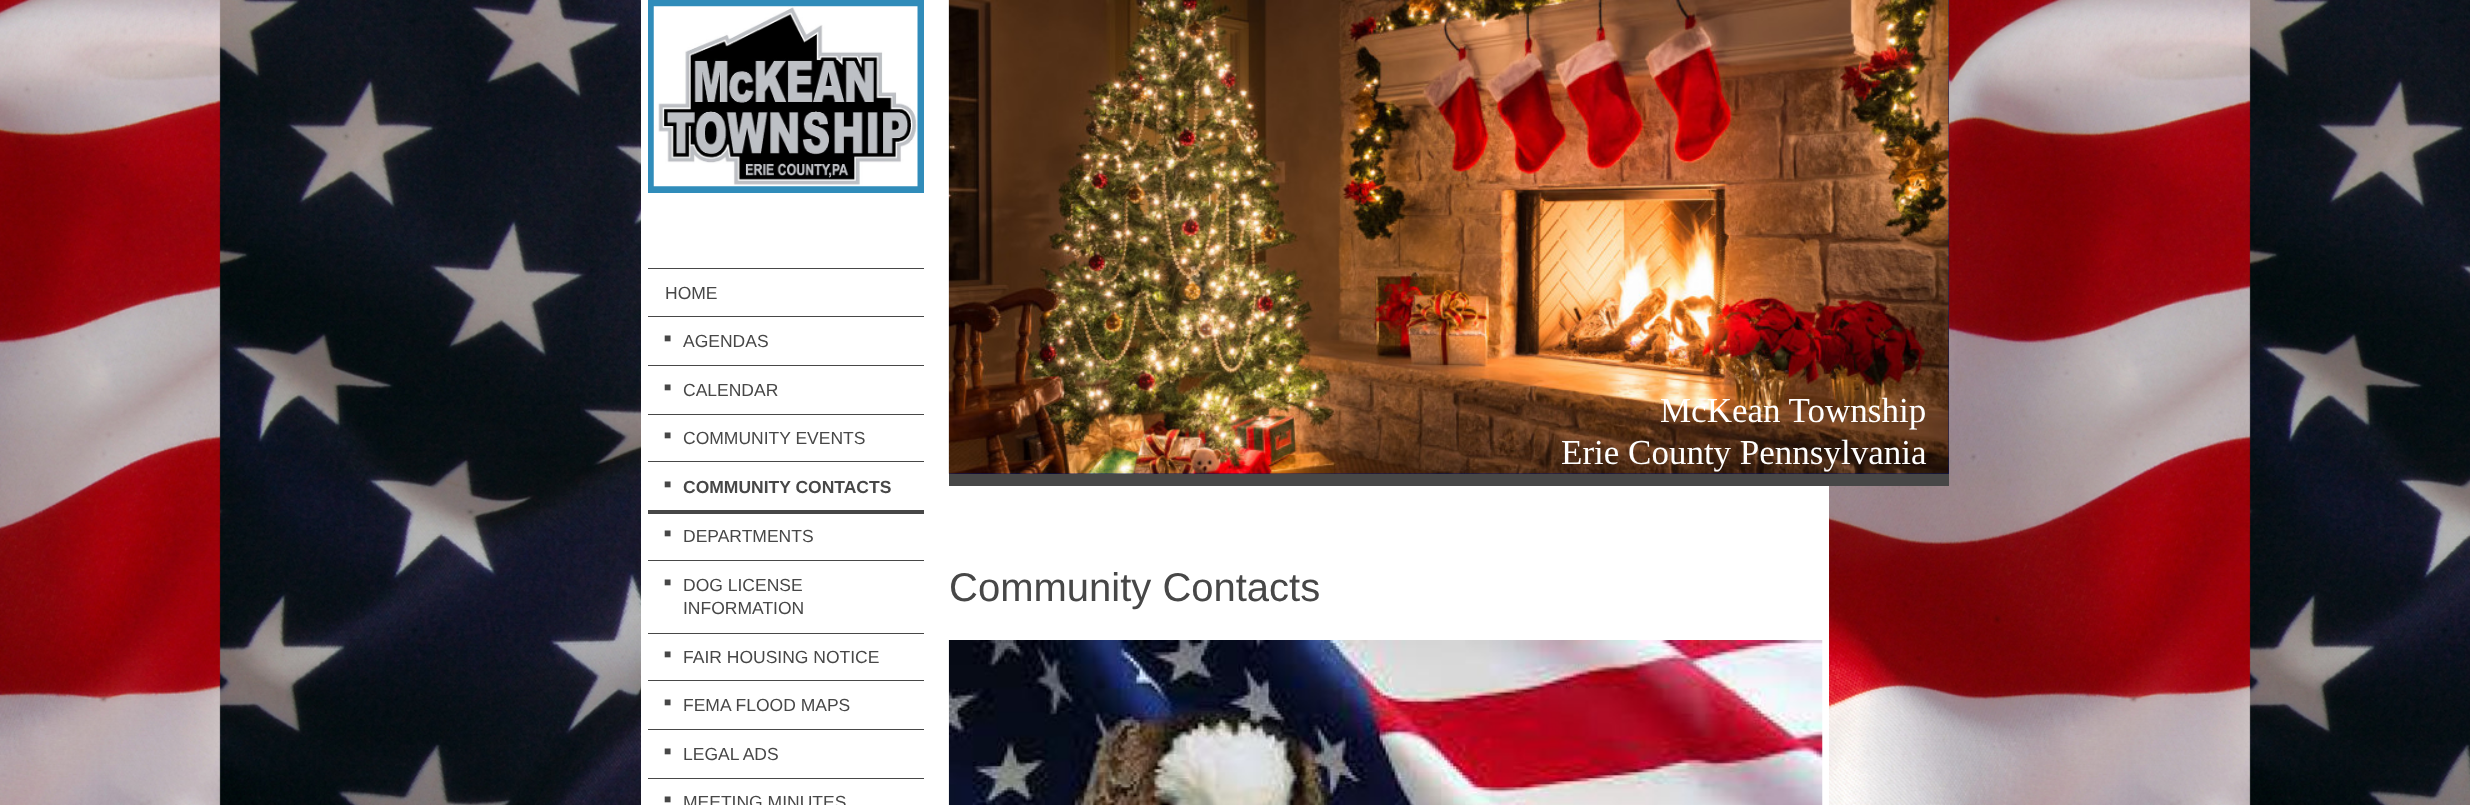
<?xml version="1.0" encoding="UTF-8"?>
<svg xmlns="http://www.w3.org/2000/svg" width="2470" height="805">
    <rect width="100%" height="100%" fill="#FFFFFF"/>
    <image x="0" y="0" width="2470" height="805" href="img_01.png"/>
    <rect x="641" y="0" width="1188" height="805" fill="#FFFFFF"/>
    <rect x="648" y="0" width="276" height="193" fill="#308CBA"/>
    <image x="653" y="6" width="265" height="181" href="img_02.png"/>
    <rect x="648" y="268" width="276" height="1" fill="#474747"/>
    <rect x="648" y="316" width="276" height="1" fill="#474747"/>
    <text x="665" y="299" font-family="Liberation Sans" font-size="17.5" fill="#474747">HOME</text>
    <rect x="648" y="365" width="276" height="1" fill="#474747"/>
    <text x="664" y="342" font-family="Liberation Sans" font-size="12" fill="#474747">■</text>
    <text x="683" y="347" font-family="Liberation Sans" font-size="17.5" fill="#474747">AGENDAS</text>
    <rect x="648" y="414" width="276" height="1" fill="#474747"/>
    <text x="664" y="391" font-family="Liberation Sans" font-size="12" fill="#474747">■</text>
    <text x="683" y="396" font-family="Liberation Sans" font-size="17.5" fill="#474747">CALENDAR</text>
    <rect x="648" y="461" width="276" height="1" fill="#474747"/>
    <text x="664" y="439" font-family="Liberation Sans" font-size="12" fill="#474747">■</text>
    <text x="683" y="444" font-family="Liberation Sans" font-size="17.5" fill="#474747">COMMUNITY EVENTS</text>
    <rect x="648" y="510" width="276" height="4" fill="#474747"/>
    <text x="664" y="488" font-family="Liberation Sans" font-size="12" font-weight="700" fill="#474747">■</text>
    <text x="683" y="493" font-family="Liberation Sans" font-size="17.5" font-weight="700" fill="#474747">COMMUNITY CONTACTS</text>
    <rect x="648" y="560" width="276" height="1" fill="#474747"/>
    <text x="664" y="537" font-family="Liberation Sans" font-size="12" fill="#474747">■</text>
    <text x="683" y="542" font-family="Liberation Sans" font-size="17.5" fill="#474747">DEPARTMENTS</text>
    <rect x="648" y="633" width="276" height="1" fill="#474747"/>
    <text x="664" y="586" font-family="Liberation Sans" font-size="12" fill="#474747">■</text>
    <text font-family="Liberation Sans" font-size="17.5" fill="#474747">
        <tspan x="683" y="591">DOG LICENSE</tspan>
        <tspan x="683" y="614">INFORMATION</tspan>
    </text>
    <rect x="648" y="680" width="276" height="1" fill="#474747"/>
    <text x="664" y="658" font-family="Liberation Sans" font-size="12" fill="#474747">■</text>
    <text x="683" y="663" font-family="Liberation Sans" font-size="17.5" fill="#474747">FAIR HOUSING NOTICE</text>
    <rect x="648" y="729" width="276" height="1" fill="#474747"/>
    <text x="664" y="706" font-family="Liberation Sans" font-size="12" fill="#474747">■</text>
    <text x="683" y="711" font-family="Liberation Sans" font-size="17.5" fill="#474747">FEMA FLOOD MAPS</text>
    <rect x="648" y="778" width="276" height="1" fill="#474747"/>
    <text x="664" y="755" font-family="Liberation Sans" font-size="12" fill="#474747">■</text>
    <text x="683" y="760" font-family="Liberation Sans" font-size="17.5" fill="#474747">LEGAL ADS</text>
    <text x="664" y="803" font-family="Liberation Sans" font-size="12" fill="#474747">■</text>
    <text x="683" y="808" font-family="Liberation Sans" font-size="17.5" fill="#474747">MEETING MINUTES</text>
    <rect x="949" y="474" width="1000" height="12" fill="#474747"/>
    <image x="948" y="0" width="1" height="474" href="img_03.png"/>
    <rect x="949" y="0" width="1000" height="474" fill="#051972"/>
    <image x="948" y="0" width="1001" height="474" href="img_04.png"/>
    <text x="1660" y="422" font-family="Liberation Serif" font-size="35" fill="#FFFFFF">McKean Township</text>
    <text x="1561" y="464" font-family="Liberation Serif" font-size="35" fill="#FFFFFF">Erie County Pennsylvania</text>
    <text x="949" y="601" font-family="Liberation Sans" font-size="40" fill="#474747">Community Contacts</text>
    <image x="948" y="640" width="875" height="165" href="img_05.png"/>
</svg>
